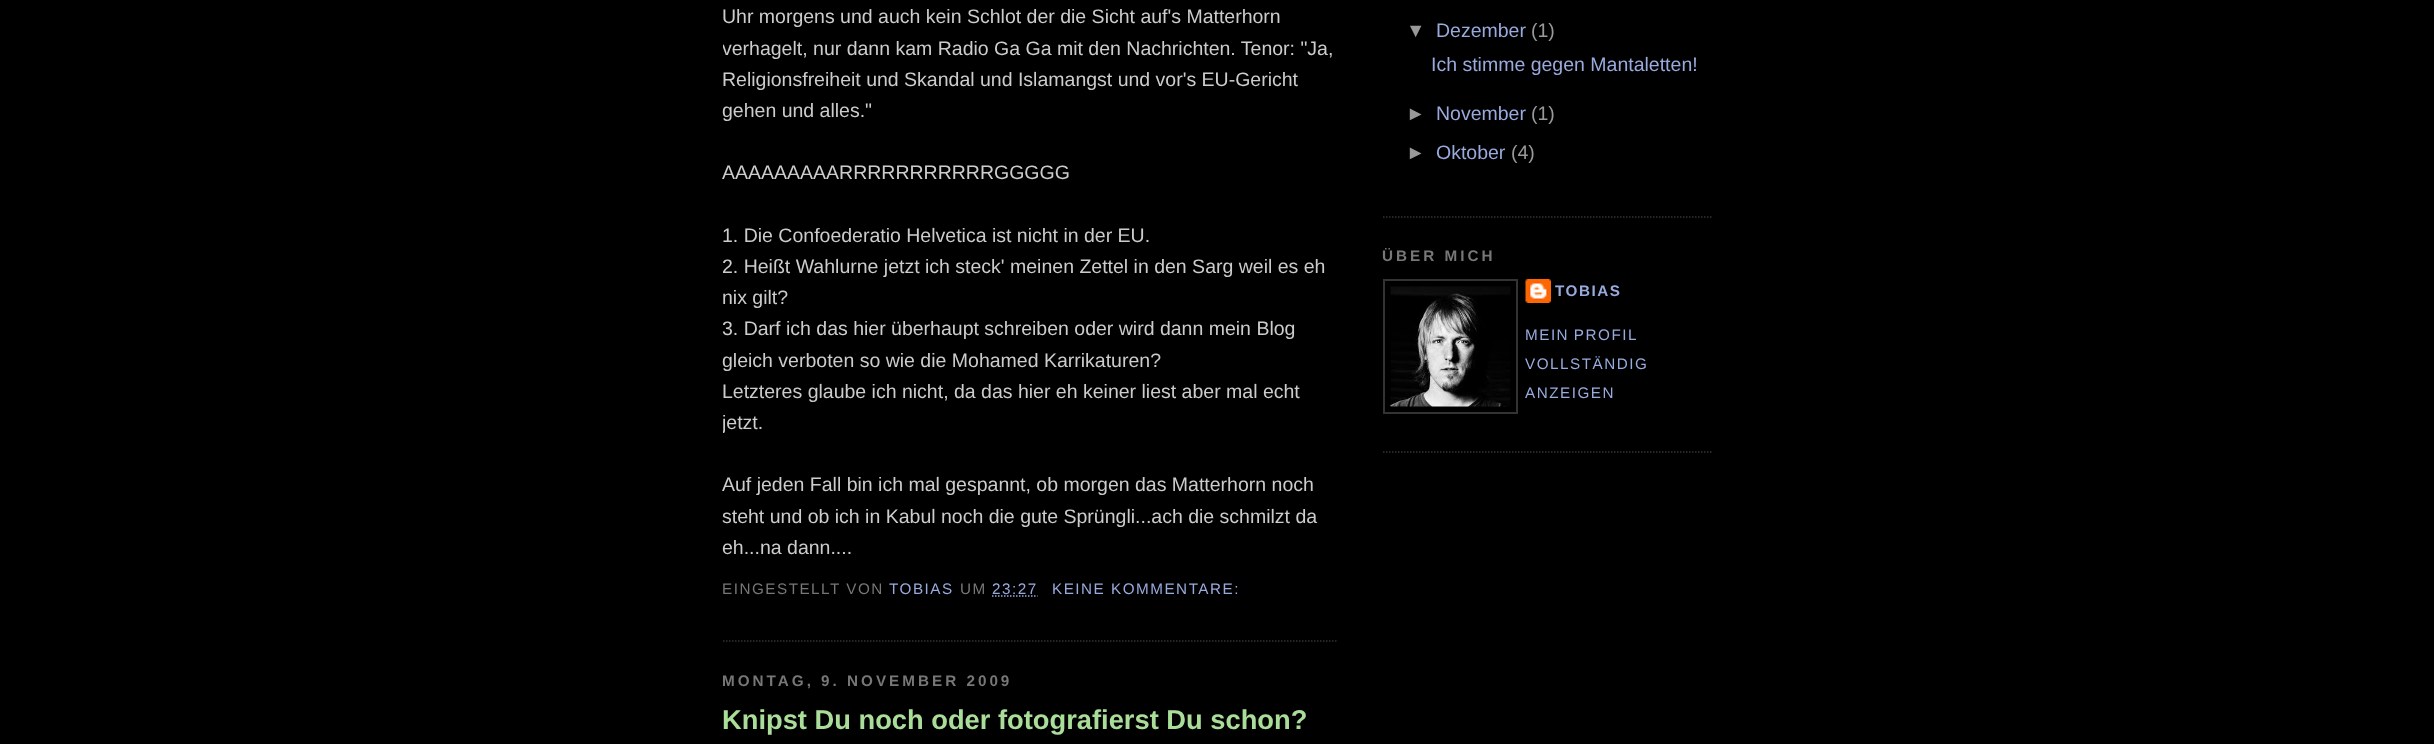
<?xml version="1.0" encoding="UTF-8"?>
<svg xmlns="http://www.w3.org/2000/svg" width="2434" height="744">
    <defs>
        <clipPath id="clip1"><rect x="723" y="0" width="615" height="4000"/></clipPath>
    </defs>
    <rect width="100%" height="100%" fill="#000000"/>
    <path d="M 723 641 H 1338" fill="none" stroke="#333333" stroke-width="1.5" stroke-dasharray="1.5 1.5"/>
    <text x="722" y="23" font-family="Liberation Sans" font-size="19.5" fill="#CCCCCC">Uhr morgens und auch kein Schlot der die Sicht auf's Matterhorn</text>
    <g clip-path="url(#clip1)">
        <text x="722" y="55" font-family="Liberation Sans" font-size="19.5" fill="#CCCCCC">verhagelt, nur dann kam Radio Ga Ga mit den Nachrichten. Tenor: "Ja,</text>
    </g>
    <text font-family="Liberation Sans" font-size="19.5" fill="#CCCCCC">
        <tspan x="722" y="86">Religionsfreiheit und Skandal und Islamangst und vor's EU-Gericht</tspan>
        <tspan x="722" y="117">gehen und alles."</tspan>
    </text>
    <text x="722" y="179" font-family="Liberation Sans" font-size="19.5" fill="#CCCCCC">AAAAAAAAARRRRRRRRRRRGGGGG</text>
    <text font-family="Liberation Sans" font-size="19.5" fill="#CCCCCC">
        <tspan x="722" y="242">1. Die Confoederatio Helvetica ist nicht in der EU.</tspan>
        <tspan x="722" y="273">2. Heißt Wahlurne jetzt ich steck' meinen Zettel in den Sarg weil es eh</tspan>
        <tspan x="722" y="304">nix gilt?</tspan>
        <tspan x="722" y="335">3. Darf ich das hier überhaupt schreiben oder wird dann mein Blog</tspan>
        <tspan x="722" y="367">gleich verboten so wie die Mohamed Karrikaturen?</tspan>
        <tspan x="722" y="398">Letzteres glaube ich nicht, da das hier eh keiner liest aber mal echt</tspan>
    </text>
    <g clip-path="url(#clip1)">
        <text x="722" y="429" font-family="Liberation Sans" font-size="19.5" fill="#CCCCCC">jetzt.</text>
    </g>
    <text font-family="Liberation Sans" font-size="19.5" fill="#CCCCCC">
        <tspan x="722" y="491">Auf jeden Fall bin ich mal gespannt, ob morgen das Matterhorn noch</tspan>
        <tspan x="722" y="523">steht und ob ich in Kabul noch die gute Sprüngli...ach die schmilzt da</tspan>
        <tspan x="722" y="554">eh...na dann....</tspan>
    </text>
    <text x="722" y="594" font-family="Liberation Sans" font-size="15.25" letter-spacing="1.5" fill="#777777">EINGESTELLT VON</text>
    <text x="889" y="594" font-family="Liberation Sans" font-size="15.25" letter-spacing="1.5" fill="#99AADD">TOBIAS</text>
    <text x="960" y="594" font-family="Liberation Sans" font-size="15.25" letter-spacing="1.5" fill="#777777">UM</text>
    <text x="992" y="594" font-family="Liberation Sans" font-size="15.25" letter-spacing="1.5" fill="#99AADD">23:27</text>
    <path d="M 992 596 H 1037.5" fill="none" stroke="#99AADD" stroke-width="1.5" stroke-dasharray="1.5 1.5"/>
    <text x="1052" y="594" font-family="Liberation Sans" font-size="15.25" letter-spacing="1.5" fill="#99AADD">KEINE KOMMENTARE:</text>
    <text x="722" y="686" font-family="Liberation Sans" font-size="15.25" font-weight="700" letter-spacing="3" fill="#777777">MONTAG, 9. NOVEMBER 2009</text>
    <text x="722" y="729" font-family="Liberation Sans" font-size="27.3" font-weight="700" fill="#AADD99">Knipst Du noch oder fotografierst Du schon?</text>
    <path d="M 1383 217 H 1713" fill="none" stroke="#333333" stroke-width="1.5" stroke-dasharray="1.5 1.5"/>
    <text x="1406" y="37" font-family="Liberation Sans" font-size="19.5" fill="#999999">▼</text>
    <text x="1436" y="37" font-family="Liberation Sans" font-size="19.5" fill="#99AADD">Dezember</text>
    <text x="1531" y="37" font-family="Liberation Sans" font-size="19.5" fill="#999999">(1)</text>
    <text x="1431" y="71" font-family="Liberation Sans" font-size="19.5" fill="#99AADD">Ich stimme gegen Mantaletten!</text>
    <text x="1406" y="120" font-family="Liberation Sans" font-size="19.5" fill="#999999">►</text>
    <text x="1436" y="120" font-family="Liberation Sans" font-size="19.5" fill="#99AADD">November</text>
    <text x="1531" y="120" font-family="Liberation Sans" font-size="19.5" fill="#999999">(1)</text>
    <text x="1406" y="159" font-family="Liberation Sans" font-size="19.5" fill="#999999">►</text>
    <text x="1436" y="159" font-family="Liberation Sans" font-size="19.5" fill="#99AADD">Oktober</text>
    <text x="1511" y="159" font-family="Liberation Sans" font-size="19.5" fill="#999999">(4)</text>
    <path d="M 1383 452 H 1713" fill="none" stroke="#333333" stroke-width="1.5" stroke-dasharray="1.5 1.5"/>
    <text x="1382" y="261" font-family="Liberation Sans" font-size="15.25" font-weight="700" letter-spacing="3" fill="#777777">ÜBER MICH</text>
    <rect x="1384" y="280" width="133" height="133" fill="none" stroke="#333333" stroke-width="2"/>
    <image x="1390" y="286" width="121" height="121" href="img_01.png"/>
    <image x="1525" y="279" width="26" height="24" href="img_02.png"/>
    <text x="1555" y="296" font-family="Liberation Sans" font-size="15.25" font-weight="700" letter-spacing="1.5" fill="#99AADD">TOBIAS</text>
    <text font-family="Liberation Sans" font-size="15.25" letter-spacing="1.5" fill="#99AADD">
        <tspan x="1525" y="340" word-spacing="-1">MEIN PROFIL</tspan>
        <tspan x="1525" y="369">VOLLSTÄNDIG</tspan>
        <tspan x="1525" y="398">ANZEIGEN</tspan>
    </text>
</svg>
